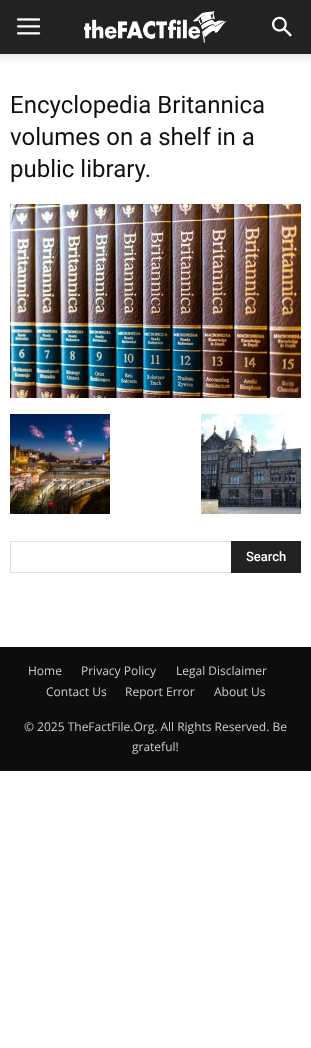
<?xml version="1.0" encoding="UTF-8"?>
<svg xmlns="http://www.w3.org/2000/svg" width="311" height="1048">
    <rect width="100%" height="100%" fill="#FFFFFF"/>
    <rect x="0" y="0" width="311" height="54" fill="#222222"/>
    <image x="17" y="18" width="24" height="17" href="img_01.png"/>
    <image x="84" y="11" width="143" height="32" href="img_02.png"/>
    <image x="272" y="16" width="20" height="21" href="img_03.png"/>
    <image x="0" y="54" width="311" height="9" href="img_04.png"/>
    <text font-family="Roboto" font-size="24" fill="#111111">
        <tspan x="10" y="113">Encyclopedia Britannica</tspan>
        <tspan x="10" y="145">volumes on a shelf in a</tspan>
        <tspan x="10" y="177">public library.</tspan>
    </text>
    <image x="10" y="204" width="291" height="194" href="img_05.png"/>
    <image x="10" y="414" width="100" height="100" href="img_06.png"/>
    <image x="201" y="414" width="100" height="100" href="img_07.png"/>
    <rect x="10" y="541" width="221" height="1" fill="#E1E1E1"/>
    <rect x="10" y="572" width="221" height="1" fill="#E1E1E1"/>
    <rect x="10" y="541" width="1" height="32" fill="#E1E1E1"/>
    <rect x="231" y="541" width="70" height="32" fill="#222222"/>
    <text x="246" y="561" font-family="Roboto" font-size="13" font-weight="500" fill="#FFFFFF">Search</text>
    <rect x="0" y="647" width="311" height="124" fill="#0D0D0D"/>
    <text x="28" y="675" font-family="Open Sans" font-size="12" fill="#CCCCCC">Home</text>
    <text x="81" y="675" font-family="Open Sans" font-size="12" fill="#CCCCCC">Privacy Policy</text>
    <text x="176" y="675" font-family="Open Sans" font-size="12" fill="#CCCCCC">Legal Disclaimer</text>
    <text x="46" y="696" font-family="Open Sans" font-size="12" fill="#CCCCCC">Contact Us</text>
    <text x="125" y="696" font-family="Open Sans" font-size="12" fill="#CCCCCC">Report Error</text>
    <text x="214" y="696" font-family="Open Sans" font-size="12" fill="#CCCCCC">About Us</text>
    <text x="24" y="731" font-family="Open Sans" font-size="12" fill="#CCCCCC">© 2025 TheFactFile.Org. All Rights Reserved. Be</text>
    <text x="132" y="751" font-family="Open Sans" font-size="12" fill="#CCCCCC">grateful!</text>
</svg>
